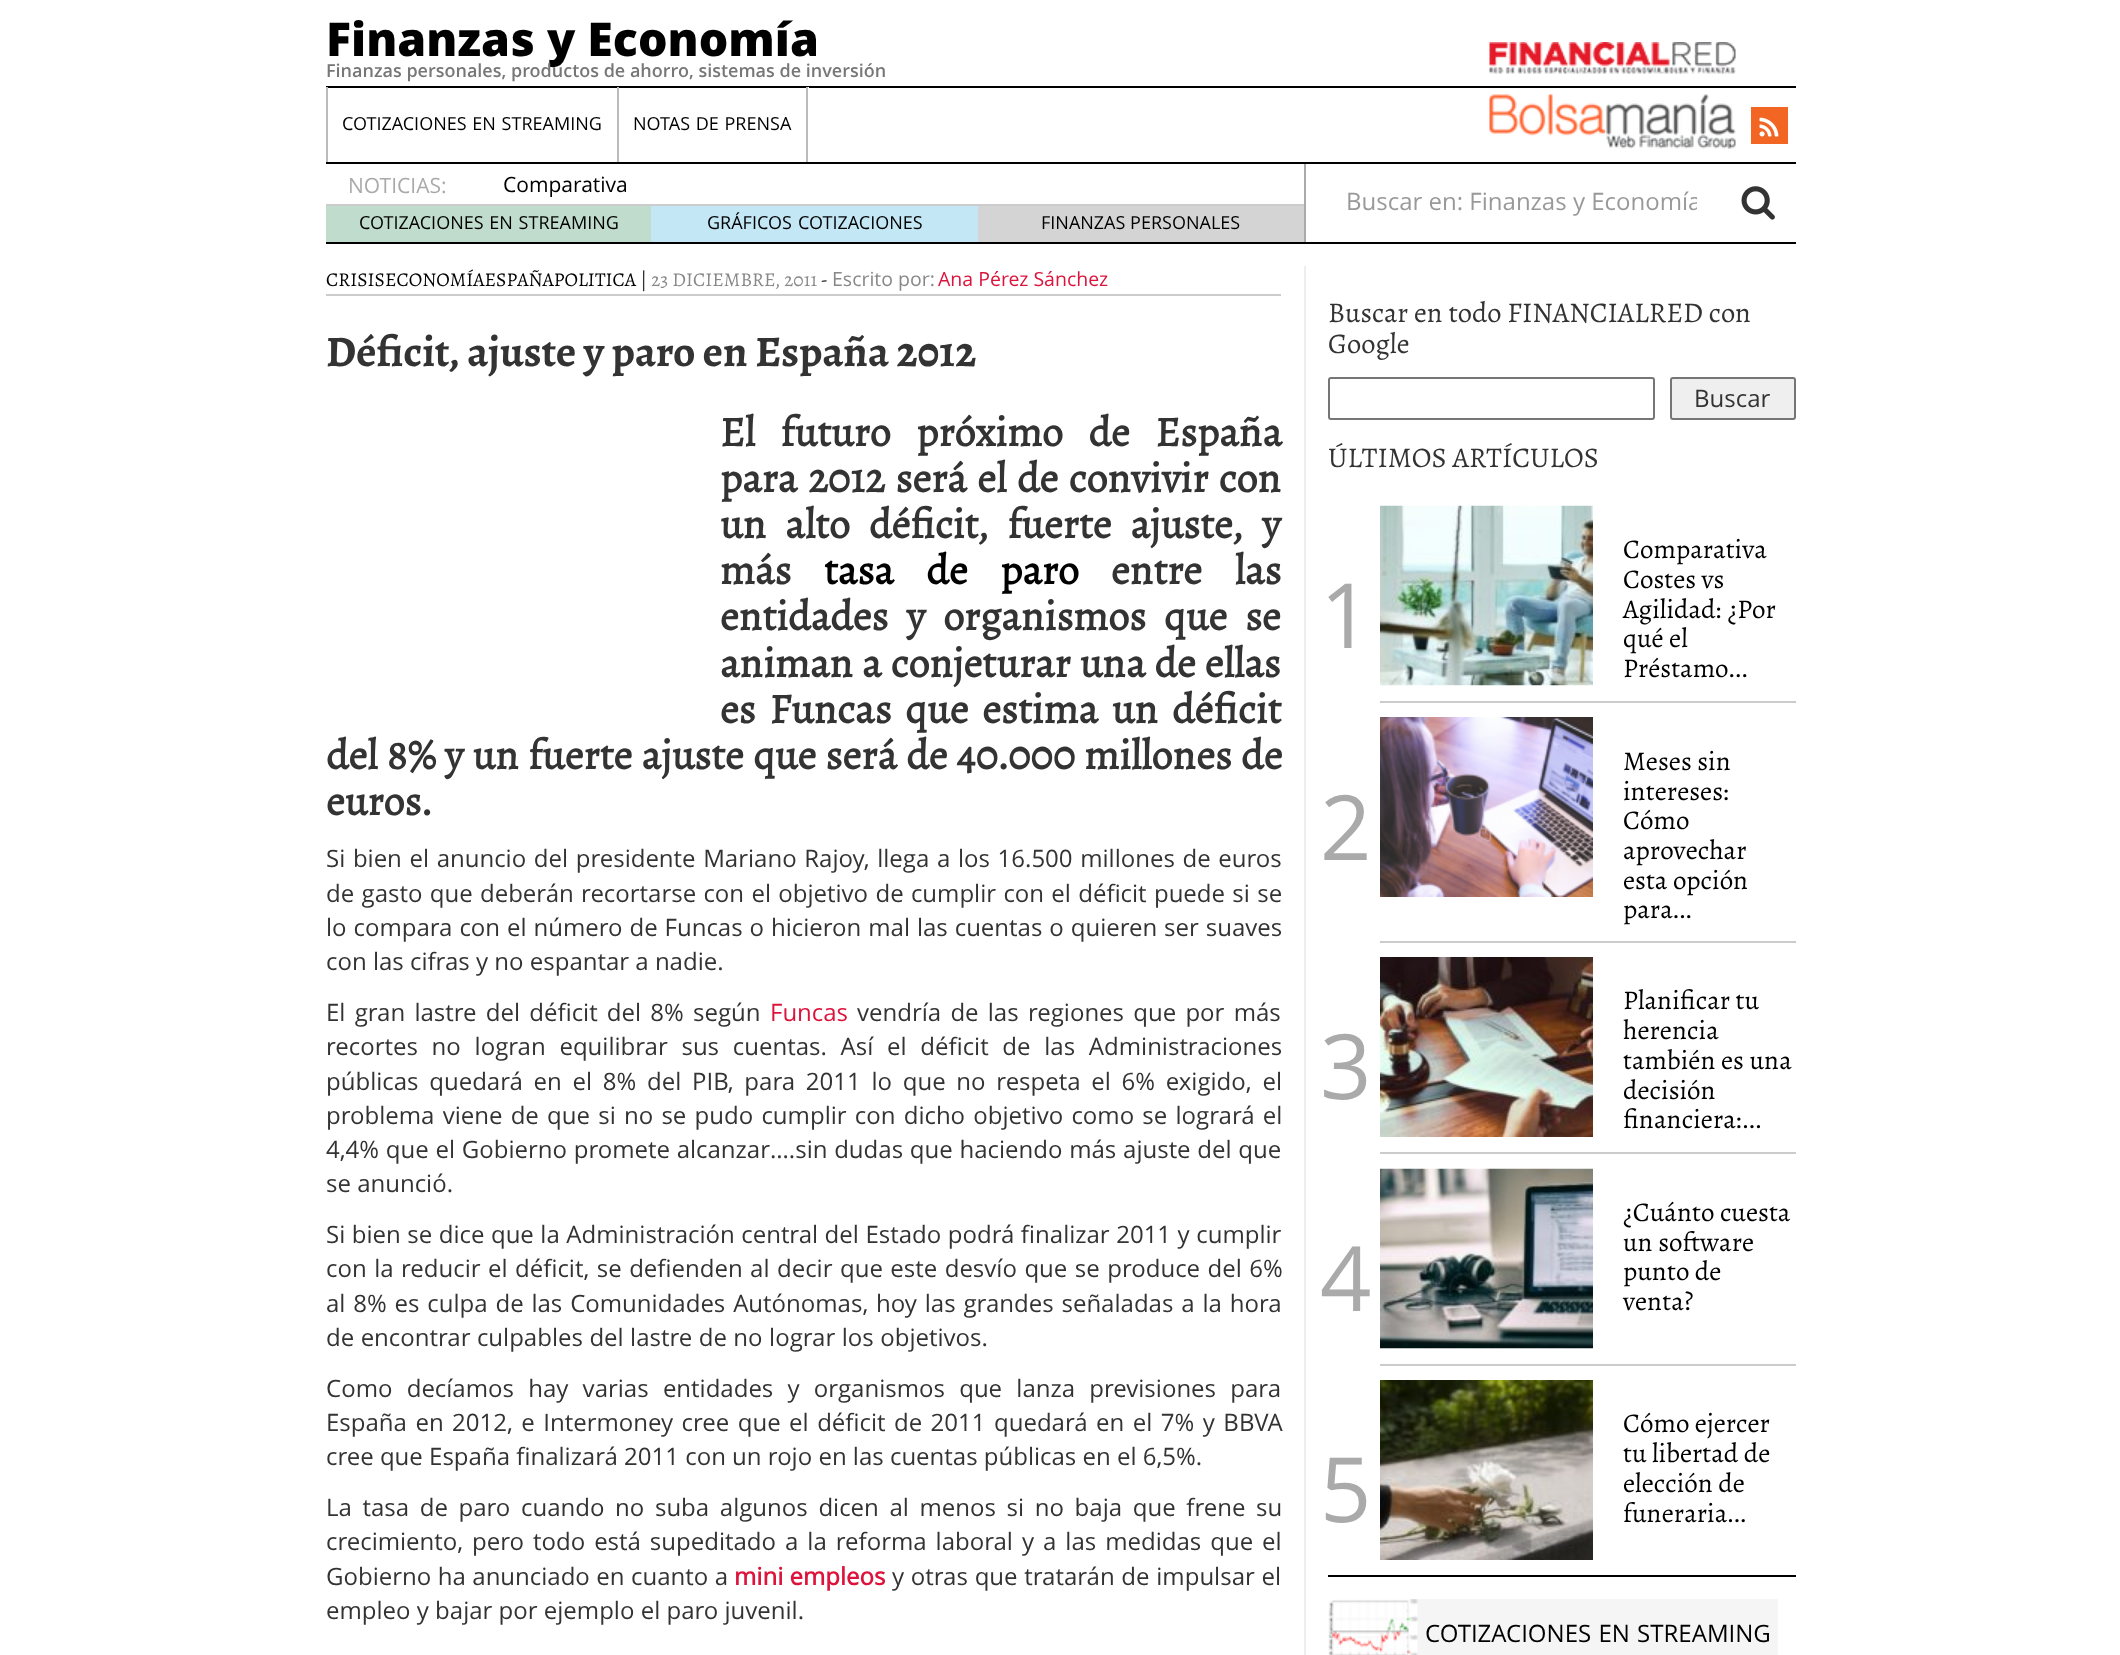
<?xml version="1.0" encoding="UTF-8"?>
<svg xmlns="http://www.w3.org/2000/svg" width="2120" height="1655">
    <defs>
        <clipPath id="clip1"><rect x="1346" y="185" width="351" height="33"/></clipPath>
    </defs>
    <rect width="100%" height="100%" fill="#FFFFFF"/>
    <rect x="326" y="86" width="1470" height="2" fill="#000000"/>
    <text x="326" y="56" font-family="Open Sans" font-size="46.5" font-weight="800" fill="#000000">Finanzas y Economía</text>
    <text x="326" y="77" font-family="Open Sans" font-size="18" font-weight="600" fill="#777777">Finanzas personales, productos de ahorro, sistemas de inversión</text>
    <rect x="326" y="162" width="1470" height="2" fill="#000000"/>
    <rect x="808" y="87" width="1" height="1" fill="#FFFFFF"/>
    <rect x="326" y="87" width="2" height="75" fill="#BBBBBB"/>
    <rect x="617" y="87" width="2" height="75" fill="#BBBBBB"/>
    <text x="342" y="130" word-spacing="1" font-family="Open Sans" font-size="18" fill="#000000">COTIZACIONES EN STREAMING</text>
    <rect x="806" y="87" width="2" height="75" fill="#BBBBBB"/>
    <text x="633" y="130" word-spacing="1" font-family="Open Sans" font-size="18" fill="#000000">NOTAS DE PRENSA</text>
    <image x="1489" y="42" width="247" height="32" href="img_01.png"/>
    <image x="1489" y="94" width="247" height="55" href="img_02.png"/>
    <rect x="1751" y="107" width="37" height="37" fill="#F26522"/>
    <image x="1759" y="117" width="20" height="20" href="img_03.png"/>
    <rect x="326" y="242" width="1470" height="2" fill="#000000"/>
    <rect x="1304" y="164" width="2" height="78" fill="#AAAAAA"/>
    <text x="348" y="193" font-family="Open Sans" font-size="21" fill="#AAAAAA">NOTICIAS:</text>
    <text x="503" y="192" font-family="Open Sans" font-size="21" fill="#000000">Comparativa</text>
    <rect x="326" y="204" width="978" height="2" fill="#CCCCCC"/>
    <rect x="326" y="206" width="325" height="36" fill="#C0DCCD"/>
    <text x="359" y="229" word-spacing="1" font-family="Open Sans" font-size="18" fill="#000000">COTIZACIONES EN STREAMING</text>
    <rect x="651" y="206" width="327" height="36" fill="#C3E7F5"/>
    <text x="707" y="229" word-spacing="1.6" font-family="Open Sans" font-size="18" fill="#000000">GRÁFICOS COTIZACIONES</text>
    <rect x="978" y="206" width="326" height="36" fill="#D4D4D4"/>
    <text x="1041" y="229" font-family="Open Sans" font-size="18" fill="#000000">FINANZAS PERSONALES</text>
    <g clip-path="url(#clip1)">
        <text x="1346" y="210" font-family="Open Sans" font-size="24" fill="#999999">Buscar en: Finanzas y Economía</text>
    </g>
    <image x="1741" y="186" width="34" height="34" href="img_04.png"/>
    <rect x="1304" y="266" width="2" height="1389" fill="#EEEEEE"/>
    <rect x="326" y="294" width="955" height="2" fill="#CCCCCC"/>
    <text x="326" y="286" font-family="Alegreya" font-size="19.5" fill="#000000">CRISISECONOMÍAESPAÑAPOLITICA</text>
    <text x="640" y="286" font-family="Alegreya" font-size="19.5" fill="#333333">|</text>
    <text x="651" y="286" font-family="Alegreya" font-size="19.5" fill="#888888">23 DICIEMBRE, 2011</text>
    <text x="821" y="286" font-family="Alegreya" font-size="19.5" fill="#333333">-</text>
    <text x="832" y="286" font-family="Open Sans" font-size="19.5" fill="#888888">Escrito por:</text>
    <text x="938" y="286" font-family="Open Sans" font-size="19.5" fill="#DC143C">Ana Pérez Sánchez</text>
    <text x="326" y="366" font-family="Alegreya" font-size="43.5" font-weight="700" fill="#333333">Déficit, ajuste y paro en España 2012</text>
    <text font-family="'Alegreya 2'" font-size="42" font-weight="700" fill="#333333">
        <tspan x="720" y="446" word-spacing="17">El futuro próximo de España</tspan>
        <tspan x="720" y="492" word-spacing="2">para 2012 será el de convivir con</tspan>
        <tspan x="720" y="538" word-spacing="10.5">un alto déficit, fuerte ajuste, y</tspan>
        <tspan x="720" y="584">más</tspan>
    </text>
    <text x="824" y="584" word-spacing="24" font-family="'Alegreya 2'" font-size="42" font-weight="700" fill="#000000">tasa de paro</text>
    <text x="1111" y="584" word-spacing="24" font-family="'Alegreya 2'" font-size="42" font-weight="700" fill="#333333">entre las</text>
    <text font-family="'Alegreya 2'" font-size="42" font-weight="700" fill="#333333">
        <tspan x="720" y="630" word-spacing="9.5">entidades y organismos que se</tspan>
        <tspan x="720" y="677" word-spacing="0.5">animan a conjeturar una de ellas</tspan>
        <tspan x="720" y="723" word-spacing="5.25">es Funcas que estima un déficit</tspan>
    </text>
    <text font-family="'Alegreya 2'" font-size="42" font-weight="700" fill="#333333">
        <tspan x="326" y="769" word-spacing="0.75">del 8% y un fuerte ajuste que será de 40.000 millones de</tspan>
        <tspan x="326" y="815">euros.</tspan>
    </text>
    <text font-family="Open Sans" font-size="24" fill="#333333">
        <tspan x="326" y="867" word-spacing="1.4">Si bien el anuncio del presidente Mariano Rajoy, llega a los 16.500 millones de euros</tspan>
        <tspan x="326" y="902" word-spacing="1.1">de gasto que deberán recortarse con el objetivo de cumplir con el déficit puede si se</tspan>
        <tspan x="326" y="936" word-spacing="0.7">lo compara con el número de Funcas o hicieron mal las cuentas o quieren ser suaves</tspan>
        <tspan x="326" y="970">con las cifras y no espantar a nadie.</tspan>
    </text>
    <text x="326" y="1021" word-spacing="3" font-family="Open Sans" font-size="24" fill="#333333">El gran lastre del déficit del 8% según</text>
    <text x="770" y="1021" font-family="Open Sans" font-size="24" fill="#DC143C">Funcas</text>
    <text x="857" y="1021" word-spacing="3" font-family="Open Sans" font-size="24" fill="#333333">vendría de las regiones que por más</text>
    <text font-family="Open Sans" font-size="24" fill="#333333">
        <tspan x="326" y="1055" word-spacing="7.5">recortes no logran equilibrar sus cuentas. Así el déficit de las Administraciones</tspan>
        <tspan x="326" y="1090" word-spacing="4.5">públicas quedará en el 8% del PIB, para 2011 lo que no respeta el 6% exigido, el</tspan>
        <tspan x="326" y="1124" word-spacing="2">problema viene de que si no se pudo cumplir con dicho objetivo como se logrará el</tspan>
        <tspan x="326" y="1158" word-spacing="0.5">4,4% que el Gobierno promete alcanzar….sin dudas que haciendo más ajuste del que</tspan>
        <tspan x="326" y="1192">se anunció.</tspan>
    </text>
    <text font-family="Open Sans" font-size="24" fill="#333333">
        <tspan x="326" y="1243" word-spacing="0.3">Si bien se dice que la Administración central del Estado podrá finalizar 2011 y cumplir</tspan>
        <tspan x="326" y="1277" word-spacing="1.25">con la reducir el déficit, se defienden al decir que este desvío que se produce del 6%</tspan>
        <tspan x="326" y="1312" word-spacing="1.6">al 8% es culpa de las Comunidades Autónomas, hoy las grandes señaladas a la hora</tspan>
        <tspan x="326" y="1346" word-spacing="0.25">de encontrar culpables del lastre de no lograr los objetivos.</tspan>
    </text>
    <text font-family="Open Sans" font-size="24" fill="#333333">
        <tspan x="326" y="1397" word-spacing="8">Como decíamos hay varias entidades y organismos que lanza previsiones para</tspan>
        <tspan x="326" y="1431" word-spacing="2.25">España en 2012, e Intermoney cree que el déficit de 2011 quedará en el 7% y BBVA</tspan>
        <tspan x="326" y="1465">cree que España finalizará 2011 con un rojo en las cuentas públicas en el 6,5%.</tspan>
    </text>
    <text font-family="Open Sans" font-size="24" fill="#333333">
        <tspan x="326" y="1516" word-spacing="4.4">La tasa de paro cuando no suba algunos dicen al menos si no baja que frene su</tspan>
        <tspan x="326" y="1550">crecimiento,</tspan>
    </text>
    <text x="472" y="1550" word-spacing="2.75" font-family="Open Sans" font-size="24" fill="#333333">pero todo está supeditado a la reforma laboral y a las medidas que el</text>
    <text x="326" y="1585" word-spacing="0.25" font-family="Open Sans" font-size="24" fill="#333333">Gobierno ha anunciado en cuanto a</text>
    <text x="734" y="1585" font-family="Open Sans" font-size="24" font-weight="700" fill="#DC143C">mini empleos</text>
    <text x="892" y="1585" word-spacing="0.5" font-family="Open Sans" font-size="24" fill="#333333">y otras que tratarán de impulsar el</text>
    <text x="326" y="1619" font-family="Open Sans" font-size="24" fill="#333333">empleo y bajar por ejemplo el paro juvenil.</text>
    <text font-family="Alegreya" font-size="28.5" fill="#333333">
        <tspan x="1328" y="322">Buscar en todo FINANCIALRED con</tspan>
        <tspan x="1328" y="353">Google</tspan>
    </text>
    <rect x="1329" y="378" width="325" height="41" rx="2" fill="none" stroke="#767676" stroke-width="2"/>
    <rect x="1671" y="378" width="124" height="41" rx="2" fill="#EFEFEF" stroke="#767676" stroke-width="2"/>
    <text x="1694" y="407" font-family="Open Sans" font-size="24" fill="#333333">Buscar</text>
    <rect x="1328" y="1575" width="468" height="2" fill="#000000"/>
    <text x="1328" y="467" font-family="Alegreya" font-size="28.5" fill="#333333">ÚLTIMOS ARTÍCULOS</text>
    <rect x="1380" y="701" width="416" height="2" fill="#CCCCCC"/>
    <text x="1320" y="648" font-family="Open Sans" font-size="90" fill="#AAAAAA">1</text>
    <image x="1380" y="505" width="213" height="181" href="img_05.png"/>
    <text font-family="Alegreya" font-size="27" fill="#000000">
        <tspan x="1623" y="558">Comparativa</tspan>
        <tspan x="1623" y="588">Costes vs</tspan>
        <tspan x="1623" y="618">Agilidad: ¿Por</tspan>
        <tspan x="1623" y="647">qué el</tspan>
        <tspan x="1623" y="677">Préstamo...</tspan>
    </text>
    <rect x="1380" y="941" width="416" height="2" fill="#CCCCCC"/>
    <text x="1320" y="860" font-family="Open Sans" font-size="90" fill="#AAAAAA">2</text>
    <image x="1380" y="717" width="213" height="180" href="img_06.png"/>
    <text font-family="Alegreya" font-size="27" fill="#000000">
        <tspan x="1623" y="770">Meses sin</tspan>
        <tspan x="1623" y="800">intereses:</tspan>
        <tspan x="1623" y="829">Cómo</tspan>
        <tspan x="1623" y="859">aprovechar</tspan>
        <tspan x="1623" y="889">esta opción</tspan>
        <tspan x="1623" y="918">para...</tspan>
    </text>
    <rect x="1380" y="1152" width="416" height="2" fill="#CCCCCC"/>
    <text x="1320" y="1099" font-family="Open Sans" font-size="90" fill="#AAAAAA">3</text>
    <image x="1380" y="957" width="213" height="180" href="img_07.png"/>
    <text font-family="Alegreya" font-size="27" fill="#000000">
        <tspan x="1623" y="1009">Planificar tu</tspan>
        <tspan x="1623" y="1039">herencia</tspan>
        <tspan x="1623" y="1069">también es una</tspan>
        <tspan x="1623" y="1099">decisión</tspan>
        <tspan x="1623" y="1128">financiera:...</tspan>
    </text>
    <rect x="1380" y="1364" width="416" height="2" fill="#CCCCCC"/>
    <text x="1320" y="1311" font-family="Open Sans" font-size="90" fill="#AAAAAA">4</text>
    <image x="1380" y="1168" width="213" height="181" href="img_08.png"/>
    <text font-family="Alegreya" font-size="27" fill="#000000">
        <tspan x="1623" y="1221">¿Cuánto cuesta</tspan>
        <tspan x="1623" y="1251">un software</tspan>
        <tspan x="1623" y="1280">punto de</tspan>
        <tspan x="1623" y="1310">venta?</tspan>
    </text>
    <text x="1320" y="1522" font-family="Open Sans" font-size="90" fill="#AAAAAA">5</text>
    <image x="1380" y="1380" width="213" height="180" href="img_09.png"/>
    <text font-family="Alegreya" font-size="27" fill="#000000">
        <tspan x="1623" y="1432">Cómo ejercer</tspan>
        <tspan x="1623" y="1462">tu libertad de</tspan>
        <tspan x="1623" y="1492">elección de</tspan>
        <tspan x="1623" y="1522">funeraria...</tspan>
    </text>
    <rect x="1417" y="1599" width="361" height="56" fill="#F5F5F5"/>
    <image x="1328" y="1599" width="90" height="56" href="img_10.png"/>
    <text x="1425" y="1642" word-spacing="1" font-family="Open Sans" font-size="24" fill="#000000">COTIZACIONES EN STREAMING</text>
</svg>
